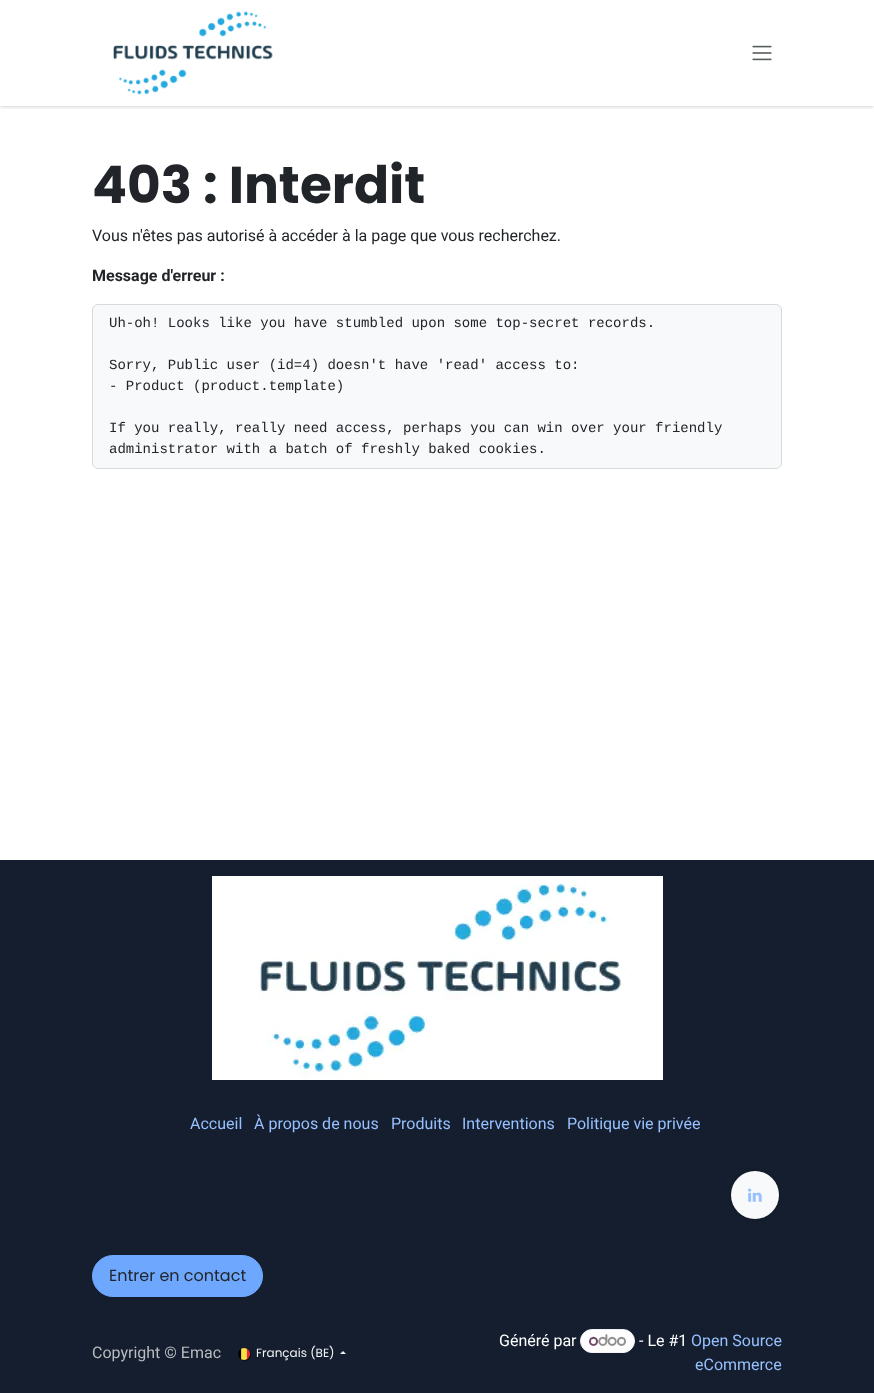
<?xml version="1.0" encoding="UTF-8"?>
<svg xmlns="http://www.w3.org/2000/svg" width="874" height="1393">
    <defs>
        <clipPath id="clip1"><rect x="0" y="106" width="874" height="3"/></clipPath>
        <filter id="blur1" x="-50%" y="-200%" width="200%" height="500%"><feGaussianBlur stdDeviation="2.5"/></filter>
        <filter id="blur2" x="-50%" y="-200%" width="200%" height="500%"><feGaussianBlur stdDeviation="0.5"/></filter>
    </defs>
    <rect width="100%" height="100%" fill="#FFFFFF"/>
    <g clip-path="url(#clip1)">
        <rect x="0" y="0" width="874" height="106" fill="#000000" fill-opacity="0.25" filter="url(#blur1)"/>
    </g>
    <image x="113" y="11" width="160" height="84" href="img_01.png"/>
    <image x="752" y="45" width="20" height="16" href="img_02.png"/>
    <text x="92" y="203" font-family="Poppins" font-size="51.75" font-weight="700" fill="#212529">403 : Interdit</text>
    <text x="92" y="241" font-family="Roboto" font-size="16" fill="#212529">Vous n'êtes pas autorisé à accéder à la page que vous recherchez.</text>
    <text x="92" y="281" font-family="Roboto" font-size="16" font-weight="700" fill="#212529">Message d'erreur :</text>
    <rect x="92.5" y="304.5" width="689" height="164" rx="5.5" fill="#F8F9FA" stroke="#D8D9DB"/>
    <text x="109" y="327" font-family="Liberation Mono" font-size="14" fill="#212529">Uh-oh! Looks like you have stumbled upon some top-secret records.</text>
    <text font-family="Liberation Mono" font-size="14" fill="#212529">
        <tspan x="109" y="369">Sorry, Public user (id=4) doesn't have 'read' access to:</tspan>
        <tspan x="109" y="390">- Product (product.template)</tspan>
    </text>
    <text font-family="Liberation Mono" font-size="14" fill="#212529">
        <tspan x="109" y="432">If you really, really need access, perhaps you can win over your friendly</tspan>
        <tspan x="109" y="453">administrator with a batch of freshly baked cookies.</tspan>
    </text>
    <rect x="0" y="860" width="874" height="533" fill="#141E2E"/>
    <image x="212" y="876" width="451" height="204" href="img_03.png"/>
    <text x="190" y="1129" font-family="Roboto" font-size="16" fill="#97C0FE">Accueil</text>
    <text x="254" y="1129" font-family="Roboto" font-size="16" fill="#97C0FE">À propos de nous</text>
    <text x="391" y="1129" font-family="Roboto" font-size="16" fill="#97C0FE">Produits</text>
    <text x="462" y="1129" font-family="Roboto" font-size="16" fill="#97C0FE">Interventions</text>
    <text x="567" y="1129" font-family="Roboto" font-size="16" fill="#97C0FE">Politique vie privée</text>
    <rect x="731" y="1171" width="48" height="48" rx="24" fill="#000000" fill-opacity="0.25" filter="url(#blur1)"/>
    <circle cx="755" cy="1195" r="24" fill="#F8F9FA"/>
    <image x="748" y="1188" width="14" height="14" href="img_04.png"/>
    <rect x="92.5" y="1255.5" width="170" height="41" rx="20.5" fill="#6EA8FE" stroke="#6EA8FE"/>
    <text x="109" y="1281" font-family="Poppins" font-size="16" fill="#212529">Entrer en contact</text>
    <text x="92" y="1358" font-family="Roboto" font-size="16" fill="#B9BCC0">Copyright © Emac</text>
    <rect x="239" y="1349" width="12" height="12" rx="6" fill="#000000" fill-opacity="0.43" filter="url(#blur2)"/>
    <text x="256" y="1357" font-family="Poppins" font-size="12" fill="#F0F2F5">Français (BE)</text>
    <image x="238" y="1348" width="12" height="12" href="img_05.png"/>
    <path d="M 346 1354 H 340 L 343 1351 Z" fill="#F0F2F5"/>
    <text x="499" y="1346" font-family="Roboto" font-size="16" fill="#FFFFFF">Généré par</text>
    <rect x="580.5" y="1329.5" width="54" height="23" rx="11.5" fill="#FEFEFE" stroke="#F0F2F5"/>
    <image x="589" y="1334" width="37" height="12" href="img_06.png"/>
    <text x="639" y="1346" font-family="Roboto" font-size="16" fill="#FFFFFF">- Le #1</text>
    <text x="691" y="1346" font-family="Roboto" font-size="16" fill="#97C0FE">Open Source</text>
    <text x="695" y="1370" font-family="Roboto" font-size="16" fill="#97C0FE">eCommerce</text>
</svg>
